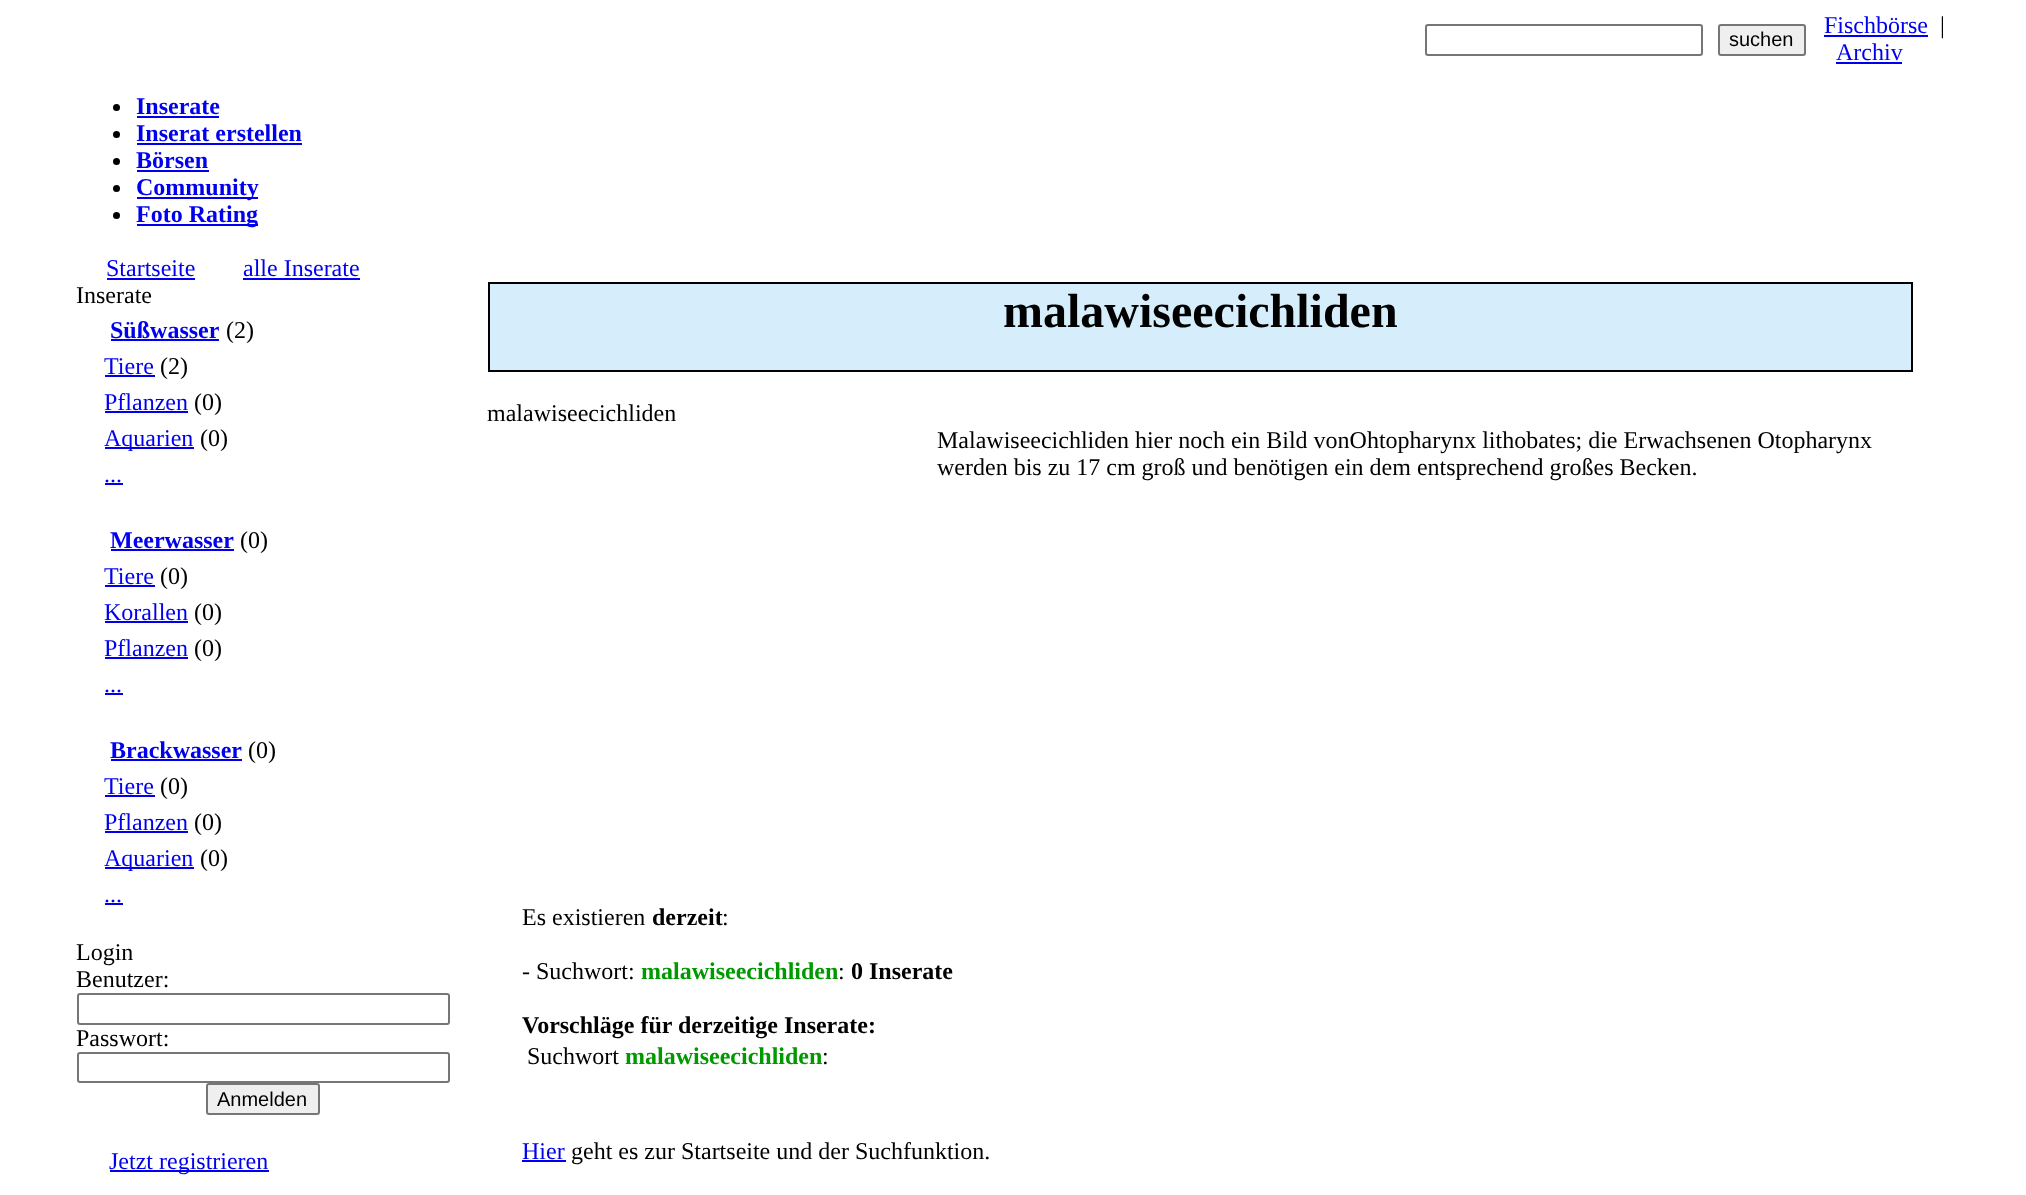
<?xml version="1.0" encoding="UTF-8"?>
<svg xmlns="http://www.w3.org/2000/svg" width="2026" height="1195">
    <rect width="100%" height="100%" fill="#FFFFFF"/>
    <rect x="1426" y="25" width="276" height="30" rx="2" fill="none" stroke="#767676" stroke-width="2"/>
    <rect x="1719" y="25" width="86" height="30" rx="2" fill="#EFEFEF" stroke="#767676" stroke-width="2"/>
    <text x="1729" y="46" font-family="Liberation Sans" font-size="20" fill="#000000">suchen</text>
    <text x="1824" y="33" font-family="Liberation Serif" font-size="24" fill="#0000EE">Fischbörse</text>
    <rect x="1824" y="35" width="104" height="2" fill="#0000EE"/>
    <text x="1940" y="33" font-family="Liberation Serif" font-size="24" fill="#000000">|</text>
    <text x="1836" y="60" font-family="Liberation Serif" font-size="24" fill="#0000EE">Archiv</text>
    <rect x="1836" y="62" width="66" height="2" fill="#0000EE"/>
    <circle cx="116.5" cy="107.5" r="3.5" fill="#000000"/>
    <text x="136" y="114" font-family="Liberation Serif" font-size="24" font-weight="700" fill="#0000EE">Inserate</text>
    <rect x="137" y="116" width="82" height="2" fill="#0000EE"/>
    <circle cx="116.5" cy="134.5" r="3.5" fill="#000000"/>
    <text x="136" y="141" font-family="Liberation Serif" font-size="24" font-weight="700" fill="#0000EE">Inserat erstellen</text>
    <rect x="137" y="143" width="165" height="2" fill="#0000EE"/>
    <circle cx="116.5" cy="161.5" r="3.5" fill="#000000"/>
    <text x="136" y="168" font-family="Liberation Serif" font-size="24" font-weight="700" fill="#0000EE">Börsen</text>
    <rect x="137" y="170" width="72" height="2" fill="#0000EE"/>
    <circle cx="116.5" cy="188.5" r="3.5" fill="#000000"/>
    <rect x="137" y="197" width="121" height="2" fill="#0000EE"/>
    <text x="136" y="195" font-family="Liberation Serif" font-size="24" font-weight="700" fill="#0000EE">Community</text>
    <circle cx="116.5" cy="215.5" r="3.5" fill="#000000"/>
    <rect x="137" y="224" width="121" height="2" fill="#0000EE"/>
    <text x="136" y="222" font-family="Liberation Serif" font-size="24" font-weight="700" fill="#0000EE">Foto Rating</text>
    <text x="106" y="276" font-family="Liberation Serif" font-size="24" fill="#0000EE">Startseite</text>
    <rect x="107" y="278" width="88" height="2" fill="#0000EE"/>
    <text x="243" y="276" font-family="Liberation Serif" font-size="24" fill="#0000EE">alle Inserate</text>
    <rect x="243" y="278" width="117" height="2" fill="#0000EE"/>
    <text x="76" y="303" font-family="Liberation Serif" font-size="24" fill="#000000">Inserate</text>
    <text x="110" y="338" font-family="Liberation Serif" font-size="24" font-weight="700" fill="#0000EE">Süßwasser</text>
    <rect x="111" y="339" width="108" height="2" fill="#0000EE"/>
    <text x="226" y="338" font-family="Liberation Serif" font-size="24" fill="#000000">(2)</text>
    <text x="104" y="374" font-family="Liberation Serif" font-size="24" fill="#0000EE">Tiere</text>
    <rect x="105" y="375" width="50" height="2" fill="#0000EE"/>
    <text x="160" y="374" font-family="Liberation Serif" font-size="24" fill="#000000">(2)</text>
    <text x="104" y="410" font-family="Liberation Serif" font-size="24" fill="#0000EE">Pflanzen</text>
    <rect x="105" y="411" width="83" height="2" fill="#0000EE"/>
    <text x="194" y="410" font-family="Liberation Serif" font-size="24" fill="#000000">(0)</text>
    <rect x="105" y="447" width="89" height="2" fill="#0000EE"/>
    <text x="104" y="446" font-family="Liberation Serif" font-size="24" fill="#0000EE">Aquarien</text>
    <text x="200" y="446" font-family="Liberation Serif" font-size="24" fill="#000000">(0)</text>
    <text x="104" y="482" font-family="Liberation Serif" font-size="24" fill="#0000EE">...</text>
    <rect x="105" y="483" width="18" height="2" fill="#0000EE"/>
    <text x="110" y="548" font-family="Liberation Serif" font-size="24" font-weight="700" fill="#0000EE">Meerwasser</text>
    <rect x="111" y="549" width="123" height="2" fill="#0000EE"/>
    <text x="240" y="548" font-family="Liberation Serif" font-size="24" fill="#000000">(0)</text>
    <text x="104" y="584" font-family="Liberation Serif" font-size="24" fill="#0000EE">Tiere</text>
    <rect x="105" y="585" width="50" height="2" fill="#0000EE"/>
    <text x="160" y="584" font-family="Liberation Serif" font-size="24" fill="#000000">(0)</text>
    <text x="104" y="620" font-family="Liberation Serif" font-size="24" fill="#0000EE">Korallen</text>
    <rect x="105" y="621" width="83" height="2" fill="#0000EE"/>
    <text x="194" y="620" font-family="Liberation Serif" font-size="24" fill="#000000">(0)</text>
    <text x="104" y="656" font-family="Liberation Serif" font-size="24" fill="#0000EE">Pflanzen</text>
    <rect x="105" y="657" width="83" height="2" fill="#0000EE"/>
    <text x="194" y="656" font-family="Liberation Serif" font-size="24" fill="#000000">(0)</text>
    <text x="104" y="692" font-family="Liberation Serif" font-size="24" fill="#0000EE">...</text>
    <rect x="105" y="693" width="18" height="2" fill="#0000EE"/>
    <text x="110" y="758" font-family="Liberation Serif" font-size="24" font-weight="700" fill="#0000EE">Brackwasser</text>
    <rect x="111" y="759" width="131" height="2" fill="#0000EE"/>
    <text x="248" y="758" font-family="Liberation Serif" font-size="24" fill="#000000">(0)</text>
    <text x="104" y="794" font-family="Liberation Serif" font-size="24" fill="#0000EE">Tiere</text>
    <rect x="105" y="795" width="50" height="2" fill="#0000EE"/>
    <text x="160" y="794" font-family="Liberation Serif" font-size="24" fill="#000000">(0)</text>
    <text x="104" y="830" font-family="Liberation Serif" font-size="24" fill="#0000EE">Pflanzen</text>
    <rect x="105" y="831" width="83" height="2" fill="#0000EE"/>
    <text x="194" y="830" font-family="Liberation Serif" font-size="24" fill="#000000">(0)</text>
    <rect x="105" y="867" width="89" height="2" fill="#0000EE"/>
    <text x="104" y="866" font-family="Liberation Serif" font-size="24" fill="#0000EE">Aquarien</text>
    <text x="200" y="866" font-family="Liberation Serif" font-size="24" fill="#000000">(0)</text>
    <text x="104" y="902" font-family="Liberation Serif" font-size="24" fill="#0000EE">...</text>
    <rect x="105" y="903" width="18" height="2" fill="#0000EE"/>
    <text font-family="Liberation Serif" font-size="24" fill="#000000">
        <tspan x="76" y="960">Login</tspan>
        <tspan x="76" y="987">Benutzer:</tspan>
    </text>
    <rect x="78" y="994" width="371" height="30" rx="2" fill="none" stroke="#767676" stroke-width="2"/>
    <text x="76" y="1046" font-family="Liberation Serif" font-size="24" fill="#000000">Passwort:</text>
    <rect x="78" y="1053" width="371" height="29" rx="2" fill="none" stroke="#767676" stroke-width="2"/>
    <rect x="207" y="1084" width="112" height="30" rx="2" fill="#EFEFEF" stroke="#767676" stroke-width="2"/>
    <text x="217" y="1106" font-family="Liberation Sans" font-size="20" fill="#000000">Anmelden</text>
    <rect x="110" y="1170" width="159" height="2" fill="#0000EE"/>
    <text x="109" y="1169" font-family="Liberation Serif" font-size="24" fill="#0000EE">Jetzt registrieren</text>
    <rect x="489" y="283" width="1423" height="88" fill="#D6EEFC" stroke="#000000" stroke-width="2"/>
    <text x="1003" y="327" font-family="Liberation Serif" font-size="48" font-weight="700" fill="#000000">malawiseecichliden</text>
    <text x="487" y="421" font-family="Liberation Serif" font-size="24" fill="#000000">malawiseecichliden</text>
    <text font-family="Liberation Serif" font-size="24" fill="#000000">
        <tspan x="937" y="448">Malawiseecichliden hier noch ein Bild vonOhtopharynx lithobates; die Erwachsenen Otopharynx</tspan>
        <tspan x="937" y="475">werden bis zu 17 cm groß und benötigen ein dem entsprechend großes Becken.</tspan>
    </text>
    <text x="522" y="925" font-family="Liberation Serif" font-size="24" fill="#000000">Es existieren</text>
    <text x="652" y="925" font-family="Liberation Serif" font-size="24" font-weight="700" fill="#000000">derzeit</text>
    <text x="722" y="925" font-family="Liberation Serif" font-size="24" fill="#000000">:</text>
    <text x="522" y="979" font-family="Liberation Serif" font-size="24" fill="#000000">- Suchwort:</text>
    <text x="641" y="979" font-family="Liberation Serif" font-size="24" font-weight="700" fill="#009900">malawiseecichliden</text>
    <text x="838" y="979" font-family="Liberation Serif" font-size="24" fill="#000000">:</text>
    <text x="851" y="979" font-family="Liberation Serif" font-size="24" font-weight="700" fill="#000000">0 Inserate</text>
    <text x="522" y="1033" font-family="Liberation Serif" font-size="24" font-weight="700" fill="#000000">Vorschläge für derzeitige Inserate:</text>
    <text x="527" y="1064" font-family="Liberation Serif" font-size="24" fill="#000000">Suchwort</text>
    <text x="625" y="1064" font-family="Liberation Serif" font-size="24" font-weight="700" fill="#009900">malawiseecichliden</text>
    <text x="822" y="1064" font-family="Liberation Serif" font-size="24" fill="#000000">:</text>
    <text x="522" y="1159" font-family="Liberation Serif" font-size="24" fill="#0000EE">Hier</text>
    <rect x="522" y="1160" width="44" height="2" fill="#0000EE"/>
    <text x="571" y="1159" font-family="Liberation Serif" font-size="24" fill="#000000">geht es zur Startseite und der Suchfunktion.</text>
</svg>
